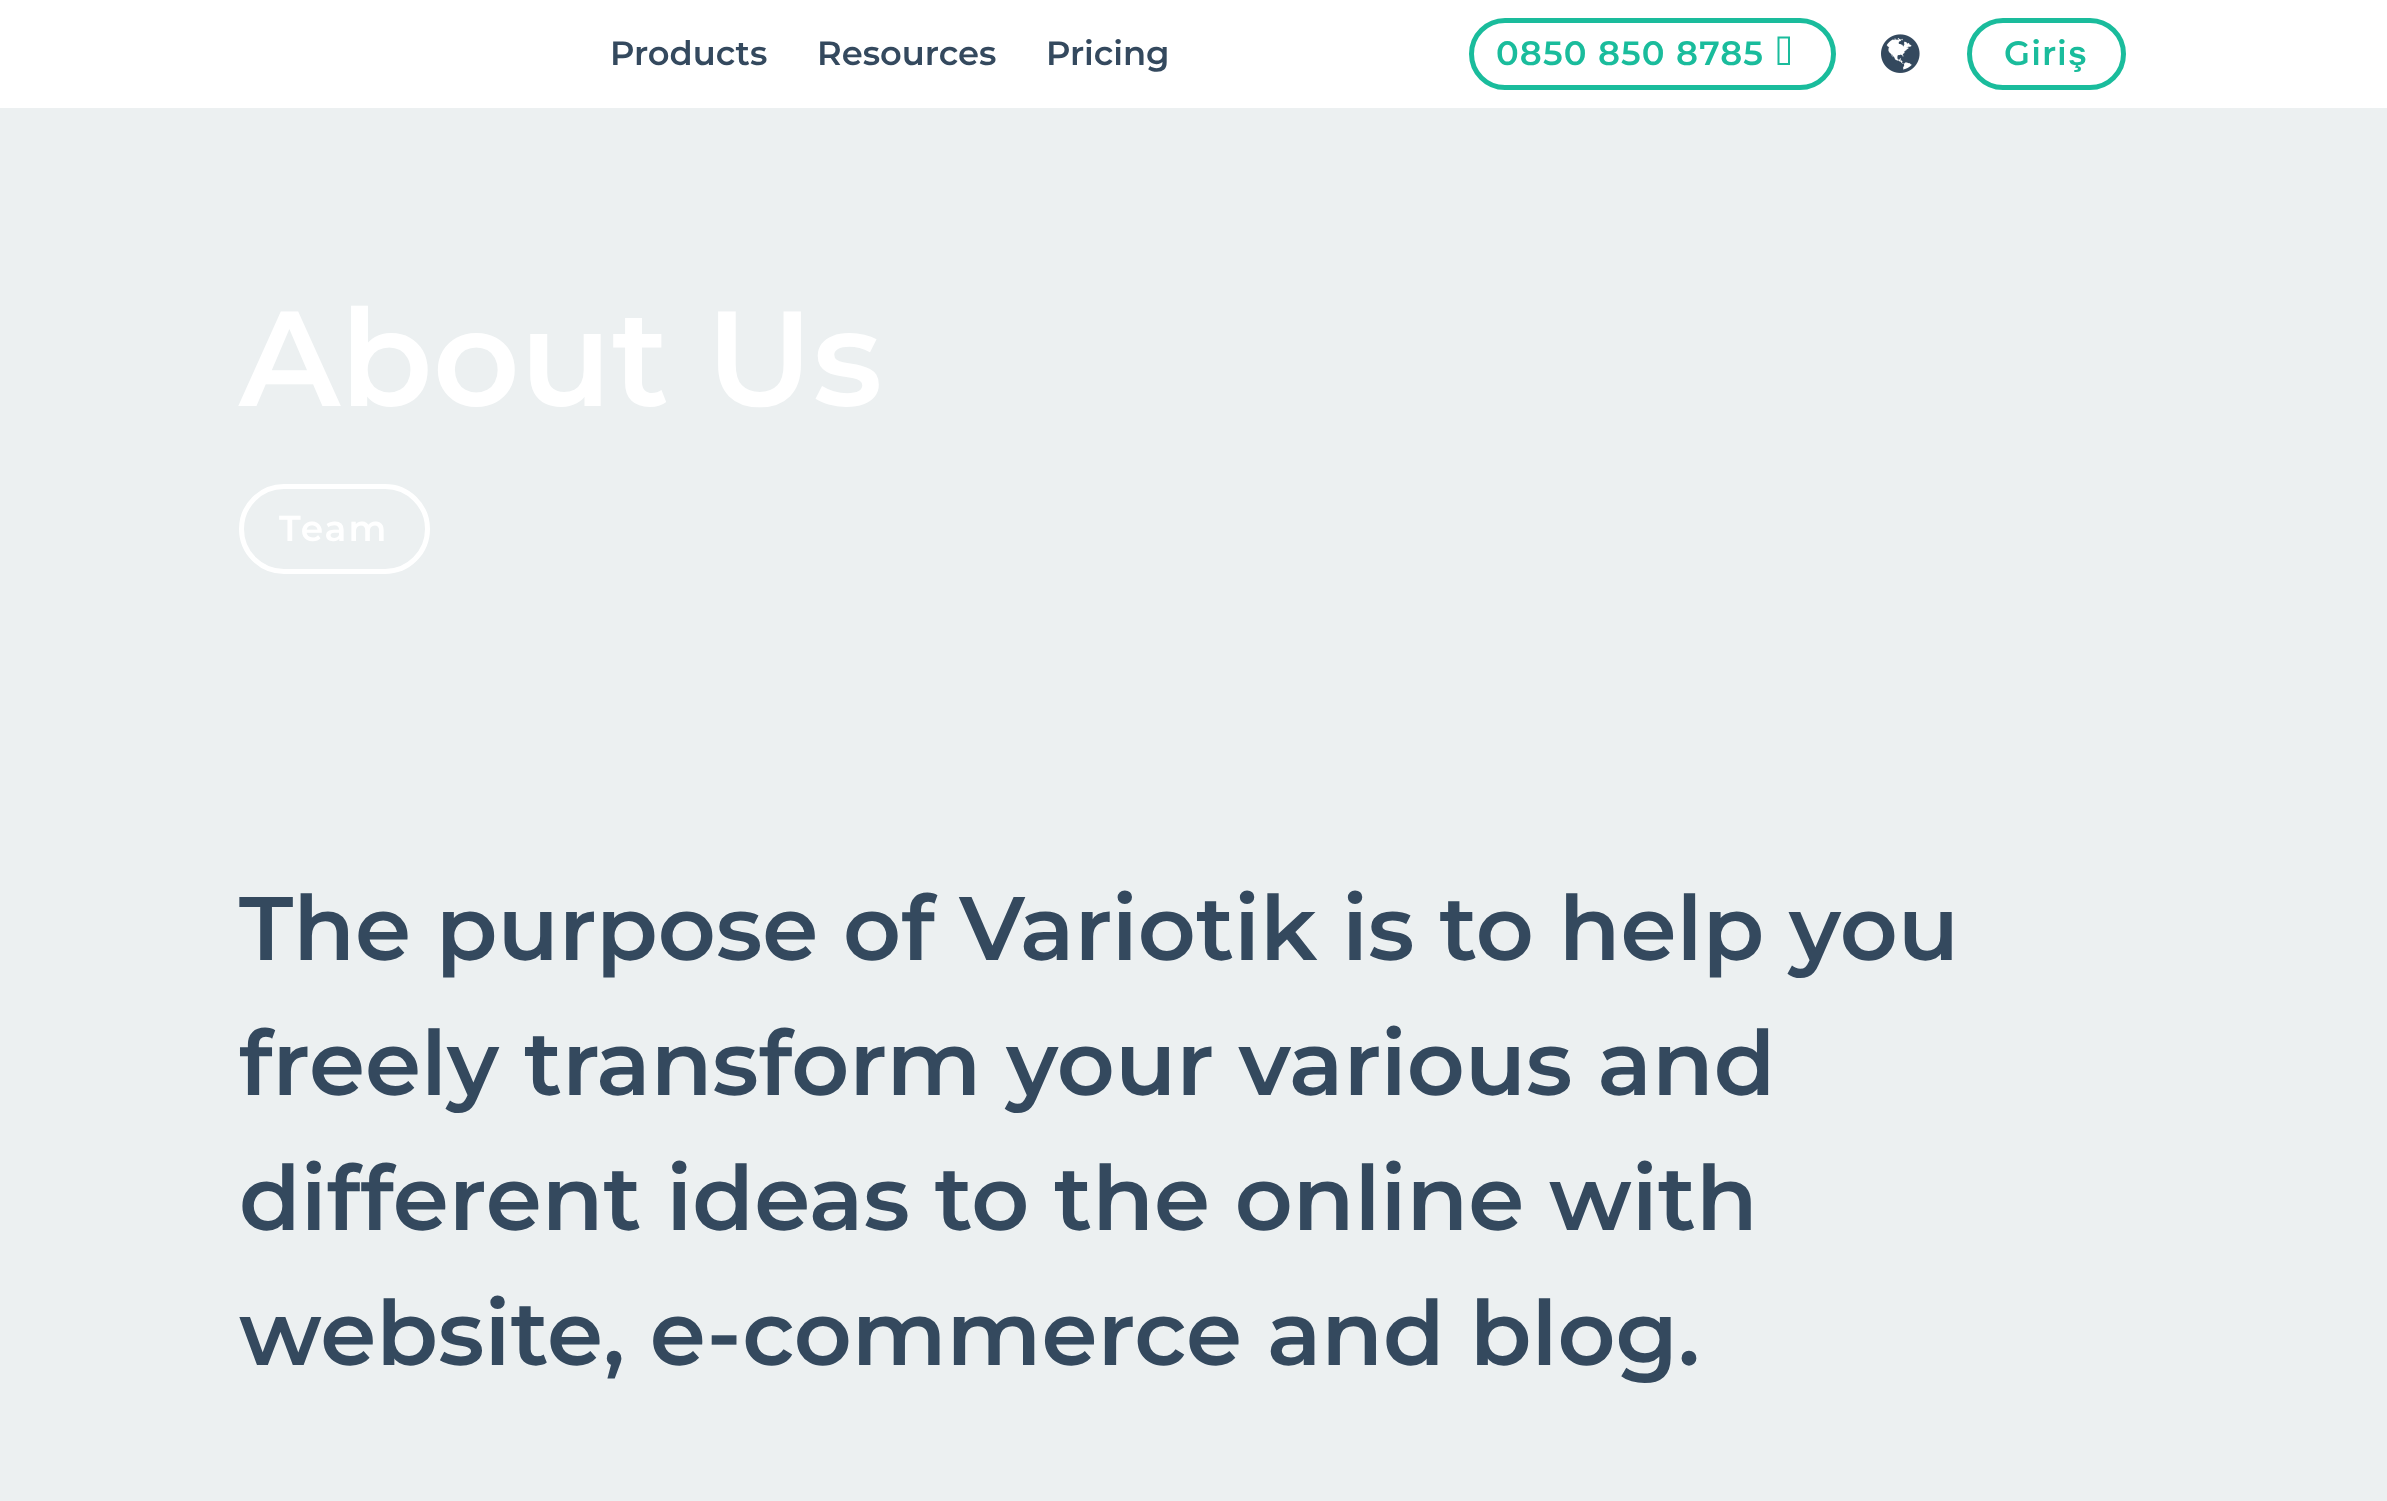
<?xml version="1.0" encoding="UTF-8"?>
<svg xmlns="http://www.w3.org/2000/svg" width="2387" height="1501">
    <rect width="100%" height="100%" fill="#FFFFFF"/>
    <text x="610" y="65" font-family="Montserrat" font-size="33.75" font-weight="600" fill="#34495E">Products</text>
    <text x="817" y="65" font-family="Montserrat" font-size="33.75" font-weight="600" fill="#34495E">Resources</text>
    <text x="1046" y="65" font-family="Montserrat" font-size="33.75" font-weight="600" fill="#34495E">Pricing</text>
    <rect x="1471.5" y="20.5" width="362" height="67" rx="33.5" fill="none" stroke="#1ABC9C" stroke-width="5"/>
    <text x="1496" y="65" font-family="Montserrat" font-size="33.75" font-weight="600" letter-spacing="1.1" fill="#1ABC9C">0850 850 8785</text>
    <path d="M 1779.5 63 V 38.5 H 1788 V 63 Z M 1777.5 65 H 1790 V 36.5 H 1777.5 Z" fill="#1ABC9C"/>
    <image x="1881" y="34" width="39" height="39" href="img_01.png"/>
    <rect x="1969.5" y="20.5" width="154" height="67" rx="33.5" fill="none" stroke="#1ABC9C" stroke-width="5"/>
    <text x="2004" y="65" font-family="Montserrat" font-size="33.75" font-weight="600" letter-spacing="1.1" fill="#1ABC9C">Giri</text>
    <text x="2068" y="65" font-family="Liberation Sans" font-size="33.75" font-weight="700" letter-spacing="1.1" fill="#1ABC9C">ş</text>
    <rect x="0" y="108" width="2387" height="1393" fill="#ECF0F1"/>
    <text x="239" y="406" font-family="Montserrat" font-size="135" font-weight="600" fill="#FFFFFF">About Us</text>
    <rect x="241.5" y="486.5" width="186" height="85" rx="42.5" fill="none" stroke="#FFFFFF" stroke-width="5"/>
    <text x="279" y="541" font-family="Montserrat" font-size="36" font-weight="600" letter-spacing="2" fill="#FFFFFF">Team</text>
    <text font-family="Montserrat" font-size="90" font-weight="600" fill="#34495E">
        <tspan x="239" y="960">The purpose of Variotik is to help you</tspan>
        <tspan x="239" y="1095">freely transform your various and</tspan>
        <tspan x="239" y="1230">different ideas to the online with</tspan>
        <tspan x="239" y="1365">website, e-commerce and blog.</tspan>
    </text>
</svg>
